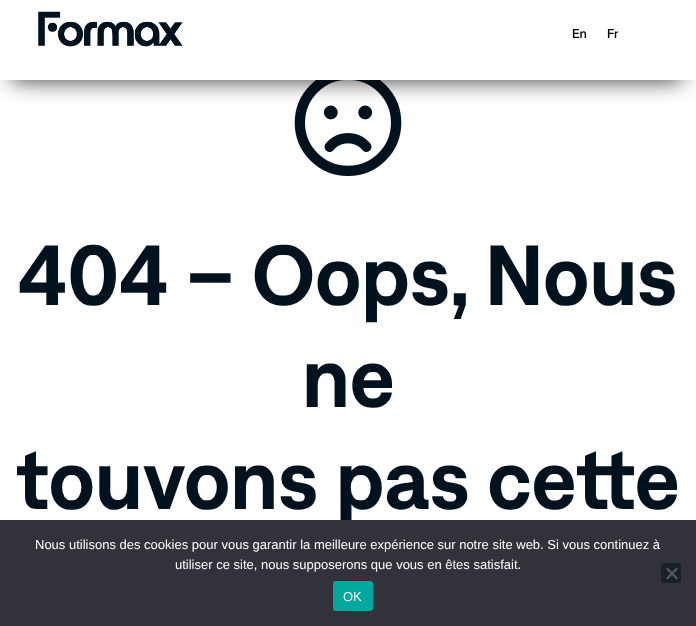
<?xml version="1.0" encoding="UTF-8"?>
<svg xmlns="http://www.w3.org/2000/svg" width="696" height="626">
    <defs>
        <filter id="blur1" x="-50%" y="-200%" width="200%" height="500%"><feGaussianBlur stdDeviation="11"/></filter>
    </defs>
    <rect width="100%" height="100%" fill="#FFFFFF"/>
    <image x="294" y="80" width="108" height="96" href="img_02.png"/>
    <rect x="12" y="27" width="670" height="54" fill="#000000" fill-opacity="0.75" filter="url(#blur1)"/>
    <rect x="0" y="3" width="696" height="77" fill="#FFFFFF"/>
    <image x="38" y="11" width="145" height="36" href="img_01.png"/>
    <text x="572" y="38" font-family="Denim" font-size="13" font-weight="500" fill="#000000">En</text>
    <text x="607" y="38" font-family="Denim" font-size="13" font-weight="500" fill="#000000">Fr</text>
    <text x="18" y="305" font-family="Denim" font-size="85" font-weight="600" fill="#00121E">404 – Oops, Nous</text>
    <text x="302" y="407" font-family="Denim" font-size="85" font-weight="600" fill="#00121E">ne</text>
    <text x="16" y="509" font-family="Denim" font-size="85" font-weight="600" fill="#00121E">touvons pas cette</text>
    <rect x="0" y="520" width="696" height="106" fill="#32323A"/>
    <text x="35" y="549" font-family="Liberation Sans" font-size="13" fill="#FFFFFF">Nous utilisons des cookies pour vous garantir la meilleure expérience sur notre site web. Si vous continuez à</text>
    <text x="175" y="569" font-family="Liberation Sans" font-size="13" fill="#FFFFFF">utiliser ce site, nous supposerons que vous en êtes satisfait.</text>
    <rect x="661" y="563" width="20" height="20" rx="3" fill="#19222C"/>
    <path d="M 676.5 567.5 L 678 569 L 667.5 579.5 L 666 578 Z" fill="#59595D"/>
    <path d="M 666 569 L 667.5 567.5 L 678 578 L 676.5 579.5 Z" fill="#59595D"/>
    <rect x="333" y="581" width="40" height="30" rx="3" fill="#00A99D"/>
    <text x="343" y="601" font-family="Liberation Sans" font-size="13" fill="#FFFFFF">OK</text>
</svg>
